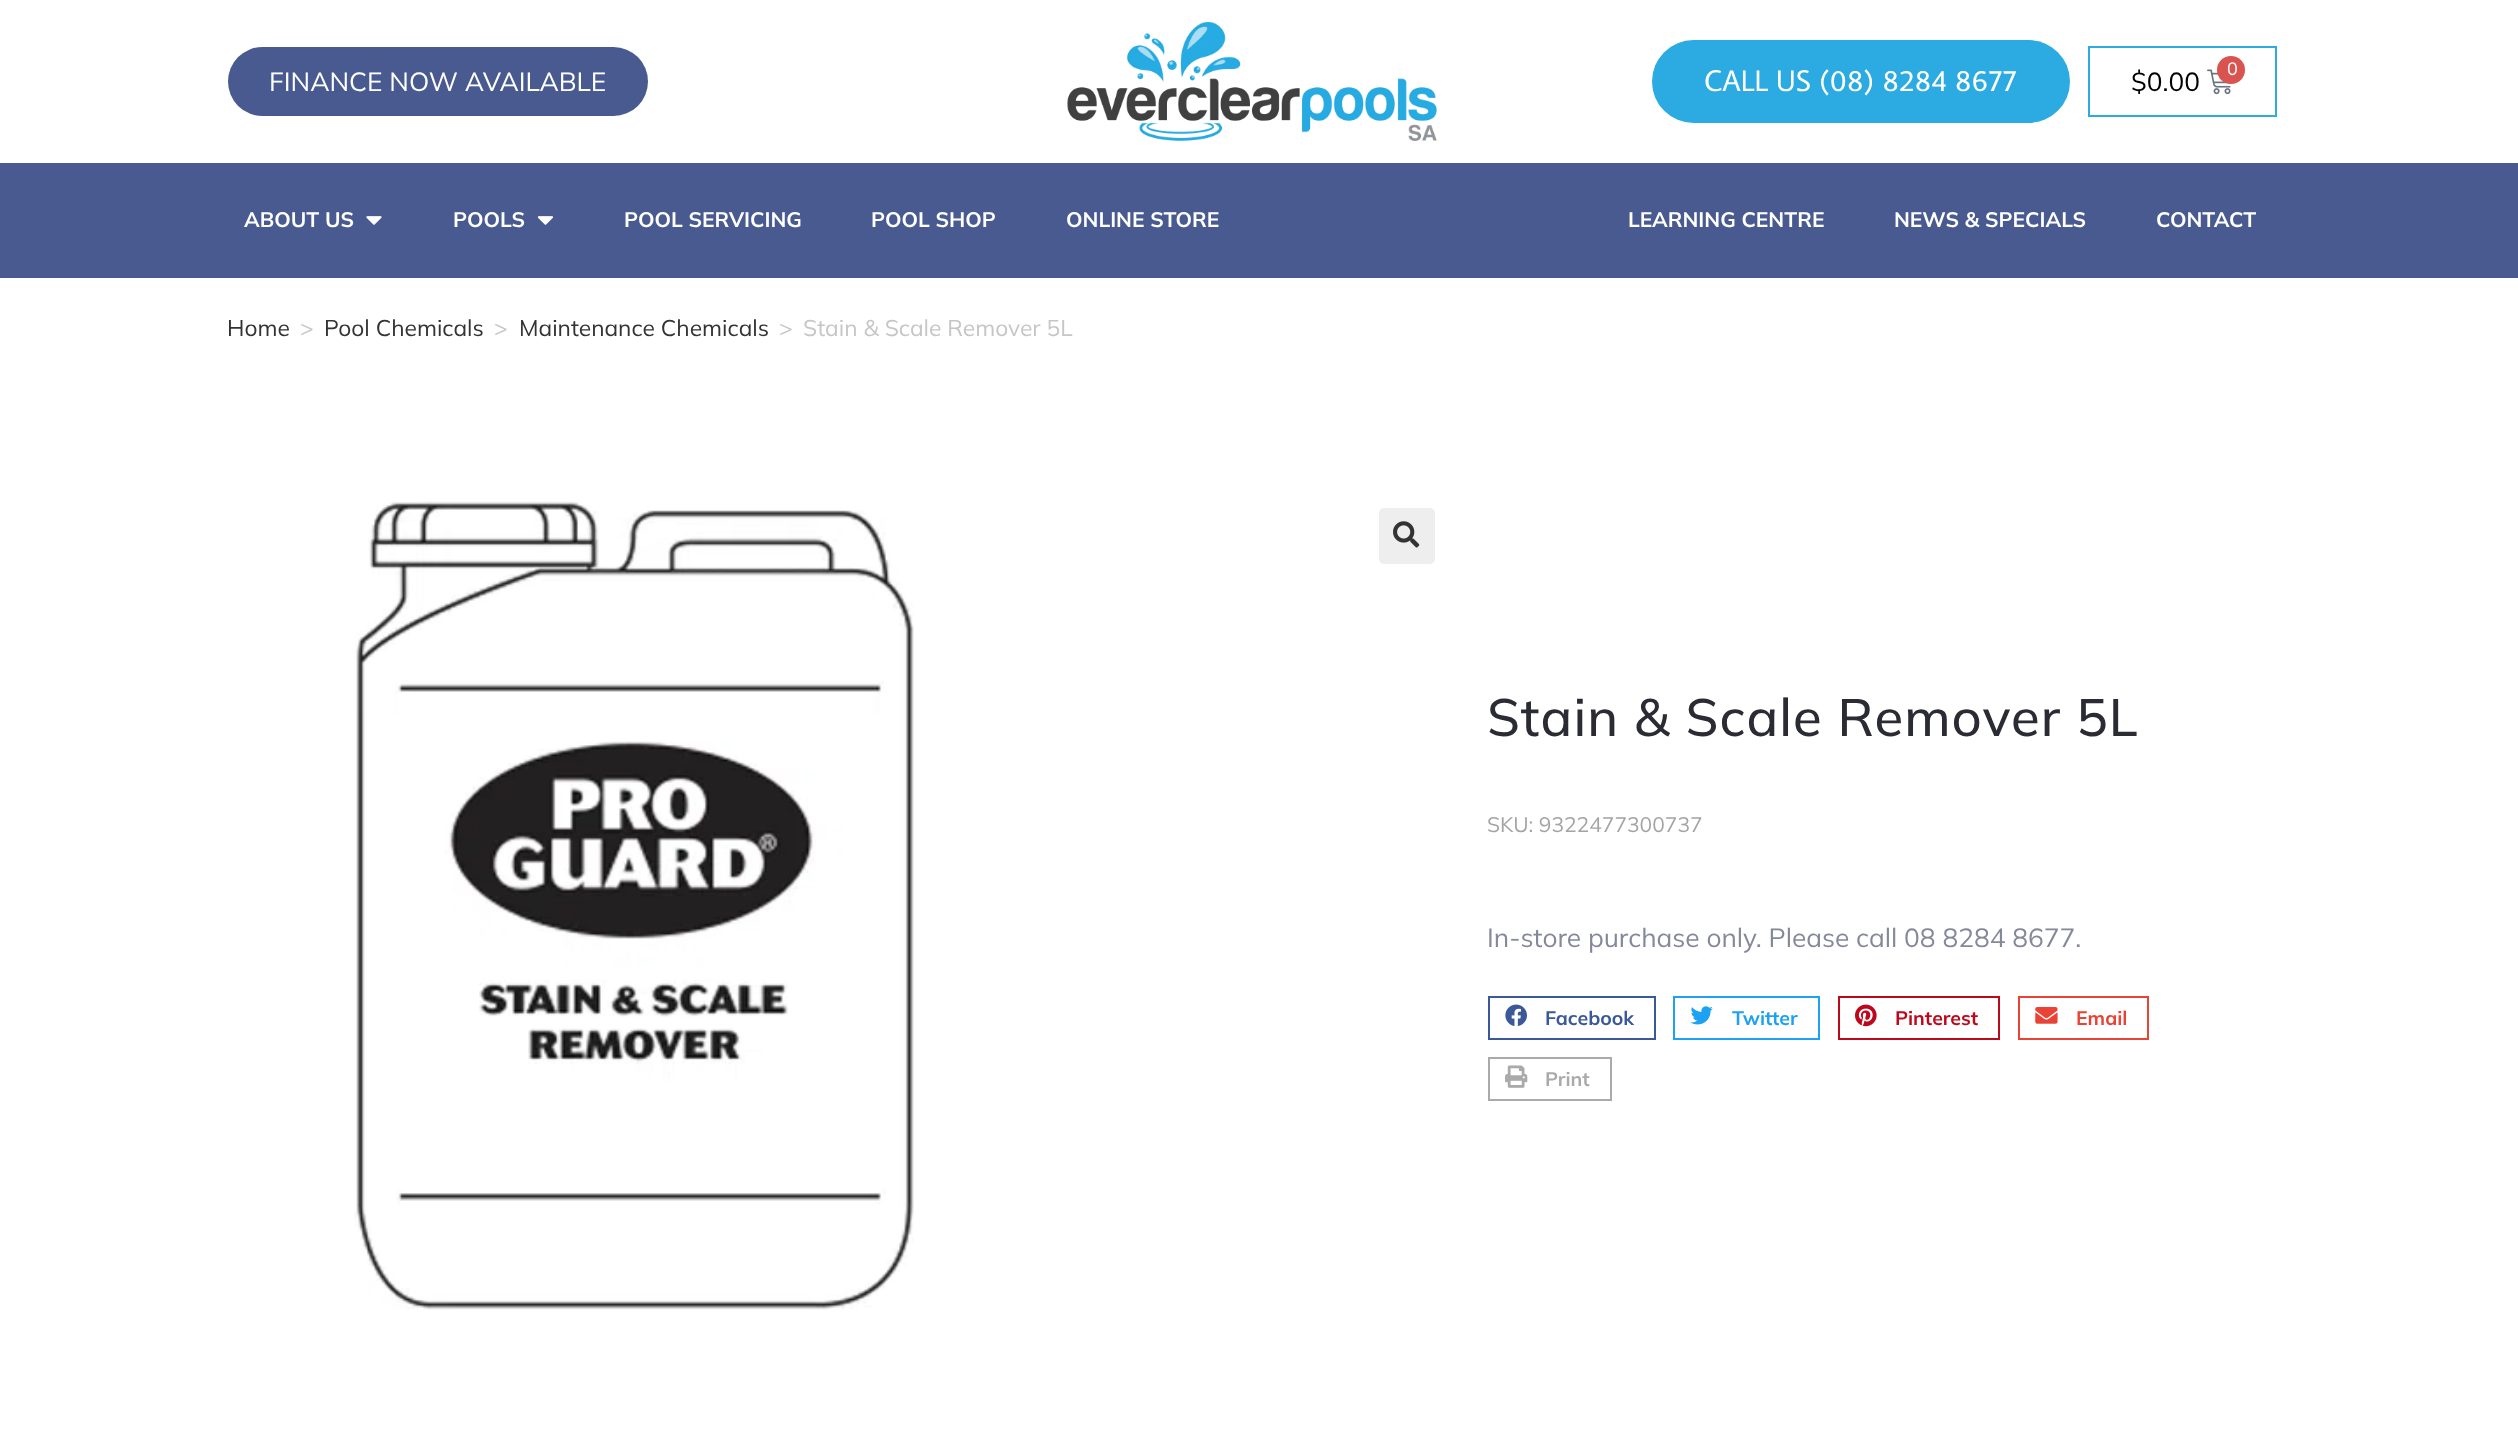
<?xml version="1.0" encoding="UTF-8"?>
<svg xmlns="http://www.w3.org/2000/svg" width="2518" height="1455">
    <rect width="100%" height="100%" fill="#FFFFFF"/>
    <rect x="228" y="47" width="420" height="69" rx="34.5" fill="#495A90"/>
    <text x="269" y="91" font-family="Mulish" font-size="26.25" fill="#FFFFFF">FINANCE NOW AVAILABLE</text>
    <image x="1067" y="22" width="370" height="119" href="img_01.png"/>
    <rect x="1652" y="40" width="418" height="83" rx="41.5" fill="#2CABE2"/>
    <text x="1704" y="91" font-family="Average Sans" font-size="29.75" fill="#FFFFFF">CALL US (08) 8284 8677</text>
    <rect x="2089" y="47" width="187" height="69" fill="none" stroke="#2CABE2" stroke-width="2"/>
    <text x="2131" y="91" font-family="Mulish" font-size="26.25" fill="#000000">$0.00</text>
    <image x="2207" y="69" width="24" height="26" href="img_02.png"/>
    <circle cx="2231" cy="70" r="14" fill="#D9534F"/>
    <text x="2227" y="75" font-family="Mulish" font-size="18" fill="#FFFFFF">0</text>
    <rect x="0" y="163" width="2518" height="115" fill="#495A90"/>
    <text x="244" y="227" font-family="Mulish" font-size="21" font-weight="700" fill="#FFFFFF">ABOUT US</text>
    <image x="366" y="216" width="16" height="9" href="img_03.png"/>
    <text x="453" y="227" font-family="Mulish" font-size="21" font-weight="700" fill="#FFFFFF">POOLS</text>
    <image x="537" y="216" width="16" height="9" href="img_04.png"/>
    <text x="624" y="227" font-family="Mulish" font-size="21" font-weight="700" fill="#FFFFFF">POOL SERVICING</text>
    <text x="871" y="227" font-family="Mulish" font-size="21" font-weight="700" fill="#FFFFFF">POOL SHOP</text>
    <text x="1066" y="227" font-family="Mulish" font-size="21" font-weight="700" fill="#FFFFFF">ONLINE STORE</text>
    <text x="1628" y="227" font-family="Mulish" font-size="21" font-weight="700" fill="#FFFFFF">LEARNING CENTRE</text>
    <text x="1894" y="227" font-family="Mulish" font-size="21" font-weight="700" fill="#FFFFFF">NEWS &amp; SPECIALS</text>
    <text x="2156" y="227" font-family="Mulish" font-size="21" font-weight="700" fill="#FFFFFF">CONTACT</text>
    <text x="227" y="336" font-family="Mulish" font-size="22.75" fill="#333333">Home</text>
    <text x="300" y="336" font-family="Mulish" font-size="22.75" fill="#C6C6C6">&gt;</text>
    <text x="324" y="336" font-family="Mulish" font-size="22.75" fill="#333333">Pool Chemicals</text>
    <text x="494" y="336" font-family="Mulish" font-size="22.75" fill="#C6C6C6">&gt;</text>
    <text x="519" y="336" font-family="Mulish" font-size="22.75" fill="#333333">Maintenance Chemicals</text>
    <text x="779" y="336" font-family="Mulish" font-size="22.75" fill="#C6C6C6">&gt;</text>
    <text x="803" y="336" font-family="Mulish" font-size="22.75" fill="#C6C6C6">Stain &amp; Scale Remover 5L</text>
    <image x="354" y="501" width="560" height="809" href="img_05.png"/>
    <rect x="1379" y="508" width="56" height="56" rx="5" fill="#EEEEEE"/>
    <image x="1393" y="521" width="27" height="27" href="img_06.png"/>
    <text x="1487" y="736" font-family="Mulish" font-size="52.5" font-weight="500" letter-spacing="1.05" fill="#2A2B33">Stain &amp; Scale Remover 5L</text>
    <text x="1487" y="832" font-family="Mulish" font-size="21" fill="#A4A4A4">SKU: 9322477300737</text>
    <text x="1487" y="947" font-family="Mulish" font-size="26.25" fill="#85889B">In-store purchase only. Please call 08 8284 8677.</text>
    <rect x="1489" y="997" width="166" height="42" fill="none" stroke="#3B5998" stroke-width="2"/>
    <image x="1505" y="1004" width="22" height="22" href="img_07.png"/>
    <text x="1545" y="1025" font-family="Mulish" font-size="19.5" font-weight="700" fill="#3B5998">Facebook</text>
    <rect x="1674" y="997" width="145" height="42" fill="none" stroke="#1DA1F2" stroke-width="2"/>
    <image x="1690" y="1006" width="23" height="19" href="img_08.png"/>
    <text x="1732" y="1025" font-family="Mulish" font-size="19.5" font-weight="700" fill="#1DA1F2">Twitter</text>
    <rect x="1839" y="997" width="160" height="42" fill="none" stroke="#BD081C" stroke-width="2"/>
    <image x="1855" y="1004" width="22" height="23" href="img_09.png"/>
    <text x="1895" y="1025" font-family="Mulish" font-size="19.5" font-weight="700" fill="#BD081C">Pinterest</text>
    <rect x="2019" y="997" width="129" height="42" fill="none" stroke="#EA4335" stroke-width="2"/>
    <image x="2035" y="1007" width="23" height="17" href="img_10.png"/>
    <text x="2076" y="1025" font-family="Mulish" font-size="19.5" font-weight="700" fill="#EA4335">Email</text>
    <rect x="1489" y="1058" width="122" height="42" fill="none" stroke="#AAAAAA" stroke-width="2"/>
    <image x="1505" y="1065" width="23" height="23" href="img_11.png"/>
    <text x="1545" y="1086" font-family="Mulish" font-size="19.5" font-weight="700" fill="#AAAAAA">Print</text>
</svg>
